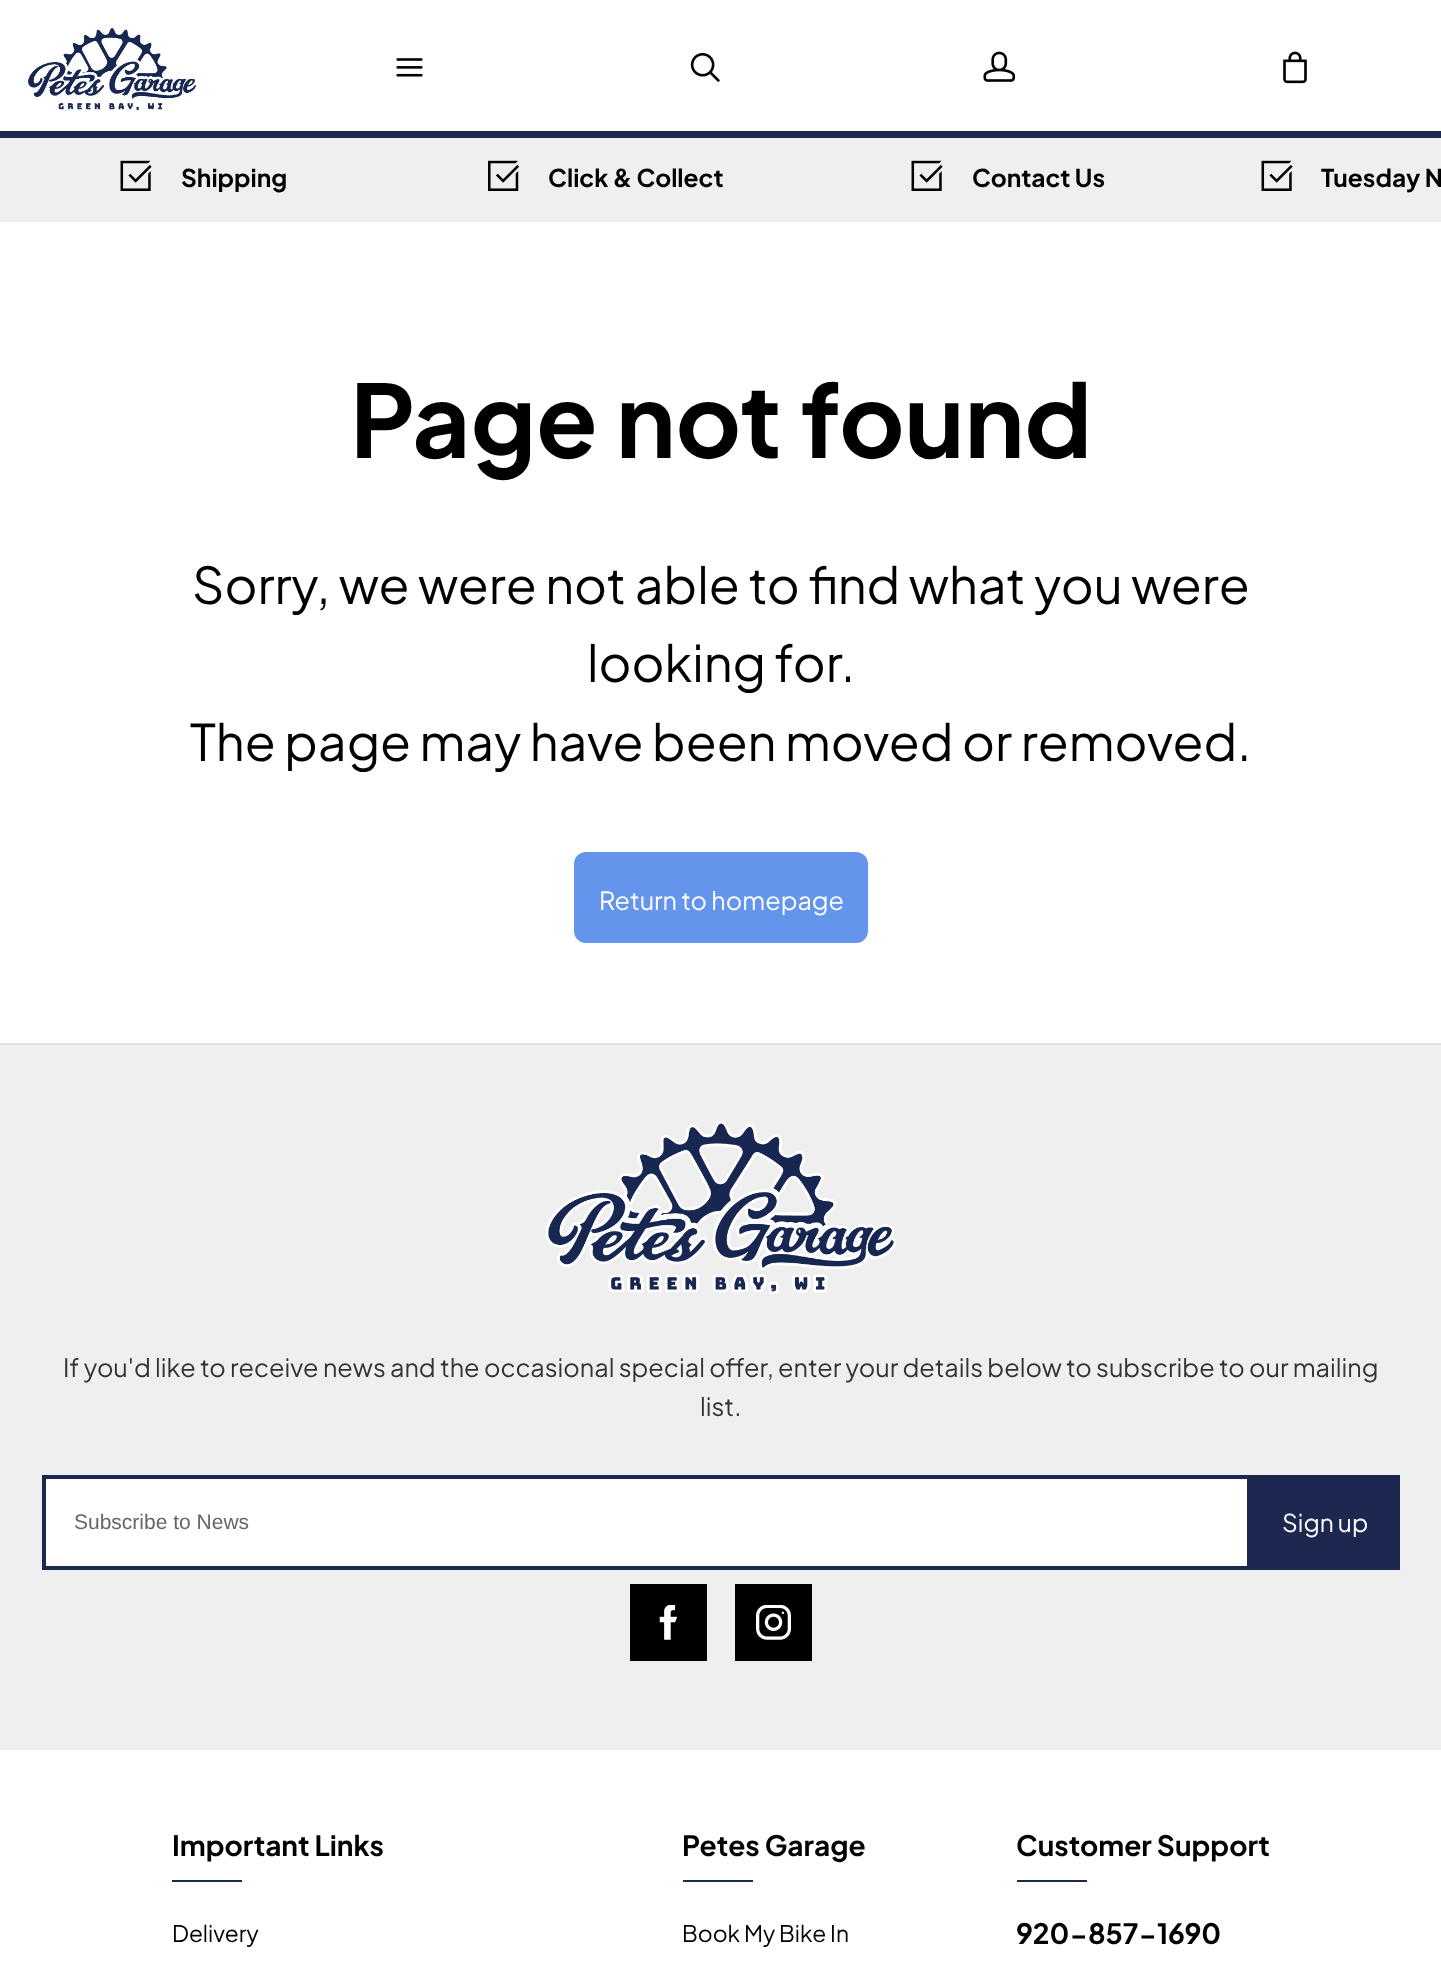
<?xml version="1.0" encoding="UTF-8"?>
<svg xmlns="http://www.w3.org/2000/svg" width="1441" height="1974">
    <rect width="100%" height="100%" fill="#DFDFDF"/>
    <rect x="0" y="0" width="1441" height="131" fill="#FFFFFF"/>
    <rect x="0" y="131" width="1441" height="7" fill="#1C2850"/>
    <image x="28" y="28" width="168" height="83" href="img_01.png"/>
    <image x="396" y="58" width="27" height="19" href="img_02.png"/>
    <image x="690" y="52" width="30" height="30" href="img_03.png"/>
    <image x="983" y="51" width="32" height="31" href="img_04.png"/>
    <image x="1283" y="51" width="24" height="33" href="img_05.png"/>
    <rect x="0" y="138" width="1441" height="84" fill="#EFEFEF"/>
    <image x="120" y="160" width="32" height="31" href="img_06.png"/>
    <text x="181" y="187" font-family="Plus Jakarta Sans" font-size="24.5" font-weight="700" fill="#000000">Shipping</text>
    <image x="488" y="160" width="31" height="31" href="img_07.png"/>
    <text x="548" y="187" font-family="Plus Jakarta Sans" font-size="24.5" font-weight="700" fill="#000000">Click &amp; Collect</text>
    <image x="911" y="160" width="32" height="31" href="img_06.png"/>
    <text x="972" y="187" font-family="Plus Jakarta Sans" font-size="24.5" font-weight="700" fill="#000000">Contact Us</text>
    <image x="1261" y="160" width="32" height="31" href="img_06.png"/>
    <text x="1321" y="187" font-family="Plus Jakarta Sans" font-size="24.5" font-weight="700" fill="#000000">Tuesday N</text>
    <rect x="0" y="222" width="1441" height="821" fill="#FFFFFF"/>
    <text x="350" y="458" font-family="Plus Jakarta Sans" font-size="100.75" font-weight="700" fill="#000000">Page not found</text>
    <text x="192" y="604" font-family="Plus Jakarta Sans" font-size="50.4" fill="#000000">Sorry, we were not able to find what you were</text>
    <text x="587" y="682" font-family="Plus Jakarta Sans" font-size="50.4" fill="#000000">looking for.</text>
    <text x="190" y="761" font-family="Plus Jakarta Sans" font-size="50.4" fill="#000000">The page may have been moved or removed.</text>
    <rect x="574" y="852" width="294" height="91" rx="12" fill="#6495ED"/>
    <text x="599" y="910" font-family="Plus Jakarta Sans" font-size="25.2" fill="#FFFFFF">Return to homepage</text>
    <rect x="0" y="1045" width="1441" height="705" fill="#EFEFEF"/>
    <image x="545" y="1121" width="352" height="173" href="img_08.png"/>
    <text x="63" y="1377" font-family="Plus Jakarta Sans" font-size="25.2" fill="#333333">If you'd like to receive news and the occasional special offer, enter your details below to subscribe to our mailing</text>
    <text x="700" y="1416" font-family="Plus Jakarta Sans" font-size="25.2" fill="#333333">list.</text>
    <rect x="44" y="1477" width="1205" height="91" fill="#FFFFFF" stroke="#1C2850" stroke-width="4"/>
    <text x="74" y="1529" font-family="Liberation Sans" font-size="21" fill="#666666">Subscribe to News</text>
    <rect x="1251" y="1475" width="149" height="95" fill="#1C2850"/>
    <text x="1282" y="1532" font-family="Plus Jakarta Sans" font-size="24.5" fill="#FFFFFF">Sign up</text>
    <rect x="630" y="1584" width="77" height="77" fill="#000000"/>
    <image x="659" y="1605" width="19" height="35" href="img_09.png"/>
    <rect x="735" y="1584" width="77" height="77" fill="#000000"/>
    <image x="756" y="1605" width="35" height="35" href="img_10.png"/>
    <rect x="0" y="1750" width="1441" height="224" fill="#FFFFFF"/>
    <text x="172" y="1856" font-family="Plus Jakarta Sans" font-size="28" font-weight="700" fill="#000000">Important Links</text>
    <rect x="172" y="1880" width="70" height="2" fill="#1C2850"/>
    <text x="172" y="1942" font-family="Plus Jakarta Sans" font-size="22.75" fill="#000000">Delivery</text>
    <text x="682" y="1856" font-family="Plus Jakarta Sans" font-size="28" font-weight="700" fill="#000000">Petes Garage</text>
    <rect x="683" y="1880" width="70" height="2" fill="#1C2850"/>
    <text x="682" y="1942" font-family="Plus Jakarta Sans" font-size="22.75" fill="#000000">Book My Bike In</text>
    <text x="1016" y="1856" font-family="Plus Jakarta Sans" font-size="28" font-weight="700" fill="#000000">Customer Support</text>
    <rect x="1017" y="1880" width="70" height="2" fill="#1C2850"/>
    <text x="1016" y="1944" font-family="Plus Jakarta Sans" font-size="28" font-weight="700" fill="#000000">920-857-1690</text>
</svg>
